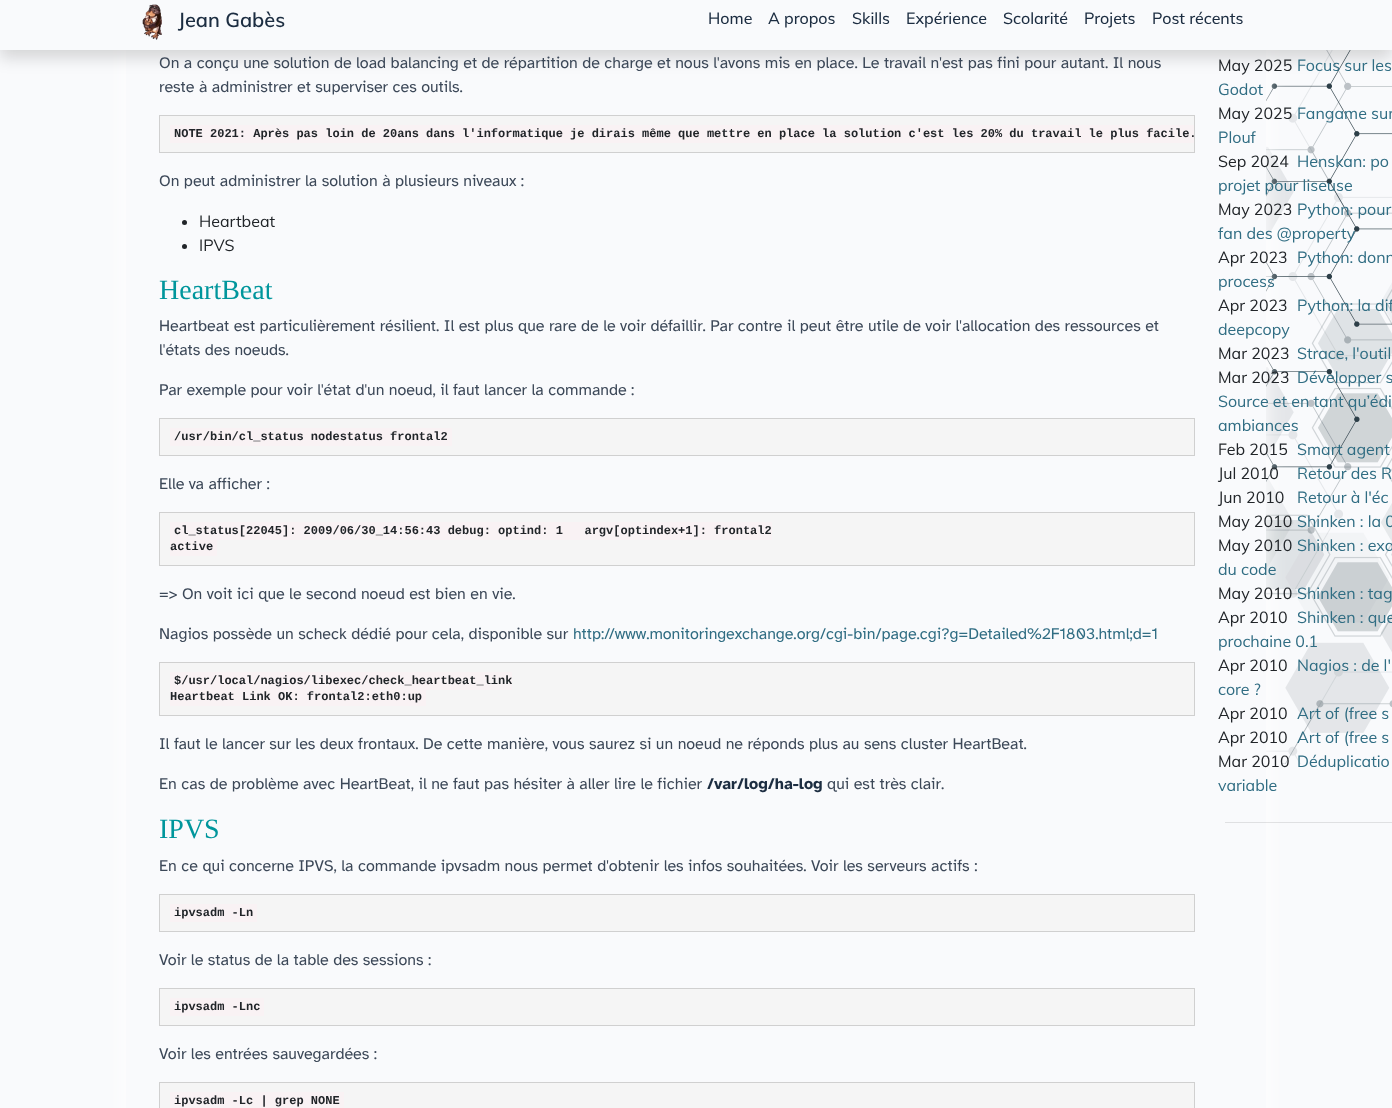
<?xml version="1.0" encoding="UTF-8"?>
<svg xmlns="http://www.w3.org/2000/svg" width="1392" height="1108">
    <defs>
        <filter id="blur1" x="-50%" y="-200%" width="200%" height="500%"><feGaussianBlur stdDeviation="10"/></filter>
        <filter id="blur2" x="-50%" y="-200%" width="200%" height="500%"><feGaussianBlur stdDeviation="8"/></filter>
    </defs>
    <rect width="100%" height="100%" fill="#F9FAFC"/>
    <image x="1266" y="50" width="126" height="714" href="img_02.png"/>
    <rect x="126" y="-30" width="1140" height="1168" fill="#FFFFFF" filter="url(#blur1)"/>
    <rect x="126" y="50" width="1140" height="1058" fill="#F9FAFC"/>
    <rect x="0" y="8" width="1392" height="50" fill="#000000" fill-opacity="0.15" filter="url(#blur2)"/>
    <rect x="0" y="0" width="1392" height="50" fill="#F9FAFC"/>
    <image x="142" y="4" width="20" height="36" href="img_01.png"/>
    <text x="178" y="27" font-family="Muli" font-size="20" font-weight="600" fill="#1C2D41">Jean Gabès</text>
    <text x="708" y="24" font-family="Muli" font-size="16" font-weight="500" fill="#1C2D41">Home</text>
    <text x="768" y="24" font-family="Muli" font-size="16" font-weight="500" fill="#1C2D41">A propos</text>
    <text x="852" y="24" font-family="Muli" font-size="16" font-weight="500" fill="#1C2D41">Skills</text>
    <text x="906" y="24" font-family="Muli" font-size="16" font-weight="500" fill="#1C2D41">Expérience</text>
    <text x="1003" y="24" font-family="Muli" font-size="16" font-weight="500" fill="#1C2D41">Scolarité</text>
    <text x="1084" y="24" font-family="Muli" font-size="16" font-weight="500" fill="#1C2D41">Projets</text>
    <text x="1152" y="24" font-family="Muli" font-size="16" font-weight="500" fill="#1C2D41">Post récents</text>
    <text font-family="Atkinson Hyperlegible" font-size="16" fill="#3C4858">
        <tspan x="159" y="68">On a conçu une solution de load balancing et de répartition de charge et nous l'avons mis en place. Le travail n'est pas fini pour autant. Il nous</tspan>
        <tspan x="159" y="92">reste à administrer et superviser ces outils.</tspan>
    </text>
    <rect x="159.5" y="115.5" width="1035" height="37" fill="#F5F5F5" stroke="#D0D0D0"/>
    <rect x="170" y="125" width="1024" height="18" fill="#F9F2F4"/>
    <text x="174" y="137" font-family="Liberation Mono" font-size="12" font-weight="700" fill="#212529">NOTE 2021: Après pas loin de 20ans dans l'informatique je dirais même que mettre en place la solution c'est les 20% du travail le plus facile.</text>
    <text x="159" y="186" font-family="Atkinson Hyperlegible" font-size="16" fill="#3C4858">On peut administrer la solution à plusieurs niveaux :</text>
    <circle cx="184.5" cy="222.5" r="2.5" fill="#212529"/>
    <text x="199" y="227" font-family="Muli" font-size="16" fill="#212529">Heartbeat</text>
    <circle cx="184.5" cy="246.5" r="2.5" fill="#212529"/>
    <text x="199" y="251" font-family="Muli" font-size="16" fill="#212529">IPVS</text>
    <text x="159" y="299" font-family="Liberation Serif" font-size="28" fill="#00969C">HeartBeat</text>
    <text font-family="Atkinson Hyperlegible" font-size="16" fill="#3C4858">
        <tspan x="159" y="331">Heartbeat est particulièrement résilient. Il est plus que rare de le voir défaillir. Par contre il peut être utile de voir l'allocation des ressources et</tspan>
        <tspan x="159" y="355">l'états des noeuds.</tspan>
    </text>
    <text x="159" y="395" font-family="Atkinson Hyperlegible" font-size="16" fill="#3C4858">Par exemple pour voir l'état d'un noeud, il faut lancer la commande :</text>
    <rect x="159.5" y="418.5" width="1035" height="37" fill="#F5F5F5" stroke="#D0D0D0"/>
    <rect x="170" y="428" width="282" height="18" fill="#F9F2F4"/>
    <text x="174" y="440" font-family="Liberation Mono" font-size="12" font-weight="700" fill="#212529">/usr/bin/cl_status nodestatus frontal2</text>
    <text x="159" y="489" font-family="Atkinson Hyperlegible" font-size="16" fill="#3C4858">Elle va afficher :</text>
    <rect x="159.5" y="512.5" width="1035" height="53" fill="#F5F5F5" stroke="#D0D0D0"/>
    <rect x="170" y="522" width="602" height="18" fill="#F9F2F4"/>
    <text x="174" y="534" font-family="Liberation Mono" font-size="12" font-weight="700" fill="#212529" xml:space="preserve">cl_status[22045]: 2009/06/30_14:56:43 debug: optind: 1   argv[optindex+1]: frontal2</text>
    <rect x="170" y="540" width="43" height="16" fill="#F9F2F4"/>
    <text x="170" y="550" font-family="Liberation Mono" font-size="12" font-weight="700" fill="#212529">active</text>
    <rect x="213" y="538" width="4" height="18" fill="#F9F2F4"/>
    <text x="159" y="599" font-family="Atkinson Hyperlegible" font-size="16" fill="#3C4858">=&gt; On voit ici que le second noeud est bien en vie.</text>
    <text x="159" y="639" font-family="Atkinson Hyperlegible" font-size="16" fill="#3C4858">Nagios possède un scheck dédié pour cela, disponible sur</text>
    <text x="573" y="639" font-family="Atkinson Hyperlegible" font-size="16" fill="#306D83">http://www.monitoringexchange.org/cgi-bin/page.cgi?g=Detailed%2F1803.html;d=1</text>
    <rect x="159.5" y="662.5" width="1035" height="53" fill="#F5F5F5" stroke="#D0D0D0"/>
    <rect x="170" y="672" width="342" height="18" fill="#F9F2F4"/>
    <text x="174" y="684" font-family="Liberation Mono" font-size="12" font-weight="700" fill="#212529">$/usr/local/nagios/libexec/check_heartbeat_link</text>
    <rect x="170" y="690" width="252" height="16" fill="#F9F2F4"/>
    <text x="170" y="700" font-family="Liberation Mono" font-size="12" font-weight="700" fill="#212529">Heartbeat Link OK: frontal2:eth0:up</text>
    <rect x="422" y="688" width="4" height="18" fill="#F9F2F4"/>
    <text x="159" y="749" font-family="Atkinson Hyperlegible" font-size="16" fill="#3C4858">Il faut le lancer sur les deux frontaux. De cette manière, vous saurez si un noeud ne réponds plus au sens cluster HeartBeat.</text>
    <text x="159" y="789" font-family="Atkinson Hyperlegible" font-size="16" fill="#3C4858">En cas de problème avec HeartBeat, il ne faut pas hésiter à aller lire le fichier</text>
    <text x="707" y="789" font-family="Atkinson Hyperlegible" font-size="16" font-weight="700" fill="#1C2D41">/var/log/ha-log</text>
    <text x="827" y="789" font-family="Atkinson Hyperlegible" font-size="16" fill="#3C4858">qui est très clair.</text>
    <text x="159" y="838" font-family="Liberation Serif" font-size="28" fill="#00969C">IPVS</text>
    <text x="159" y="871" font-family="Atkinson Hyperlegible" font-size="16" fill="#3C4858">En ce qui concerne IPVS, la commande ipvsadm nous permet d'obtenir les infos souhaitées. Voir les serveurs actifs :</text>
    <rect x="159.5" y="894.5" width="1035" height="37" fill="#F5F5F5" stroke="#D0D0D0"/>
    <rect x="170" y="904" width="87" height="18" fill="#F9F2F4"/>
    <text x="174" y="916" font-family="Liberation Mono" font-size="12" font-weight="700" fill="#212529">ipvsadm -Ln</text>
    <text x="159" y="965" font-family="Atkinson Hyperlegible" font-size="16" fill="#3C4858">Voir le status de la table des sessions :</text>
    <rect x="159.5" y="988.5" width="1035" height="37" fill="#F5F5F5" stroke="#D0D0D0"/>
    <rect x="170" y="998" width="94" height="18" fill="#F9F2F4"/>
    <text x="174" y="1010" font-family="Liberation Mono" font-size="12" font-weight="700" fill="#212529">ipvsadm -Lnc</text>
    <text x="159" y="1059" font-family="Atkinson Hyperlegible" font-size="16" fill="#3C4858">Voir les entrées sauvegardées :</text>
    <rect x="159.5" y="1082.5" width="1035" height="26" fill="#F5F5F5" stroke="#D0D0D0"/>
    <rect x="170" y="1092" width="174" height="16" fill="#F9F2F4"/>
    <text x="174" y="1104" font-family="Liberation Mono" font-size="12" font-weight="700" fill="#212529">ipvsadm -Lc | grep NONE</text>
    <text x="1218" y="71" font-family="Muli" font-size="16" fill="#212529">May 2025</text>
    <text x="1297" y="71" font-family="Muli" font-size="16" fill="#306D83">Focus sur les</text>
    <text x="1218" y="95" font-family="Muli" font-size="16" fill="#306D83">Godot</text>
    <text x="1218" y="119" font-family="Muli" font-size="16" fill="#212529">May 2025</text>
    <text x="1297" y="119" font-family="Muli" font-size="16" fill="#306D83">Fangame sur</text>
    <text x="1218" y="143" font-family="Muli" font-size="16" fill="#306D83">Plouf</text>
    <text x="1218" y="167" font-family="Muli" font-size="16" fill="#212529">Sep 2024</text>
    <text x="1297" y="167" font-family="Muli" font-size="16" fill="#306D83">Henskan: po</text>
    <text x="1218" y="191" font-family="Muli" font-size="16" fill="#306D83">projet pour liseuse</text>
    <text x="1218" y="215" font-family="Muli" font-size="16" fill="#212529">May 2023</text>
    <text x="1297" y="215" font-family="Muli" font-size="16" fill="#306D83">Python: pour</text>
    <text x="1218" y="239" font-family="Muli" font-size="16" fill="#306D83">fan des @property</text>
    <text x="1218" y="263" font-family="Muli" font-size="16" fill="#212529">Apr 2023</text>
    <text x="1297" y="263" font-family="Muli" font-size="16" fill="#306D83">Python: donn</text>
    <text x="1218" y="287" font-family="Muli" font-size="16" fill="#306D83">process</text>
    <text x="1218" y="311" font-family="Muli" font-size="16" fill="#212529">Apr 2023</text>
    <text x="1297" y="311" font-family="Muli" font-size="16" fill="#306D83">Python: la dif</text>
    <text x="1218" y="335" font-family="Muli" font-size="16" fill="#306D83">deepcopy</text>
    <text x="1218" y="359" font-family="Muli" font-size="16" fill="#212529">Mar 2023</text>
    <text x="1297" y="359" font-family="Muli" font-size="16" fill="#306D83">Strace, l'outil</text>
    <text x="1218" y="383" font-family="Muli" font-size="16" fill="#212529">Mar 2023</text>
    <text x="1297" y="383" font-family="Muli" font-size="16" fill="#306D83">Développer s</text>
    <text font-family="Muli" font-size="16" fill="#306D83">
        <tspan x="1218" y="407">Source et en tant qu’édi</tspan>
        <tspan x="1218" y="431">ambiances</tspan>
    </text>
    <text x="1218" y="455" font-family="Muli" font-size="16" fill="#212529">Feb 2015</text>
    <text x="1297" y="455" font-family="Muli" font-size="16" fill="#306D83">Smart agent</text>
    <text x="1218" y="479" font-family="Muli" font-size="16" fill="#212529">Jul 2010</text>
    <text x="1297" y="479" font-family="Muli" font-size="16" fill="#306D83">Retour des R</text>
    <text x="1218" y="503" font-family="Muli" font-size="16" fill="#212529">Jun 2010</text>
    <text x="1297" y="503" font-family="Muli" font-size="16" fill="#306D83">Retour à l'éc</text>
    <text x="1218" y="527" font-family="Muli" font-size="16" fill="#212529">May 2010</text>
    <text x="1297" y="527" font-family="Muli" font-size="16" fill="#306D83">Shinken : la 0</text>
    <text x="1218" y="551" font-family="Muli" font-size="16" fill="#212529">May 2010</text>
    <text x="1297" y="551" font-family="Muli" font-size="16" fill="#306D83">Shinken : exa</text>
    <text x="1218" y="575" font-family="Muli" font-size="16" fill="#306D83">du code</text>
    <text x="1218" y="599" font-family="Muli" font-size="16" fill="#212529">May 2010</text>
    <text x="1297" y="599" font-family="Muli" font-size="16" fill="#306D83">Shinken : tag</text>
    <text x="1218" y="623" font-family="Muli" font-size="16" fill="#212529">Apr 2010</text>
    <text x="1297" y="623" font-family="Muli" font-size="16" fill="#306D83">Shinken : que</text>
    <text x="1218" y="647" font-family="Muli" font-size="16" fill="#306D83">prochaine 0.1</text>
    <text x="1218" y="671" font-family="Muli" font-size="16" fill="#212529">Apr 2010</text>
    <text x="1297" y="671" font-family="Muli" font-size="16" fill="#306D83">Nagios : de l'</text>
    <text x="1218" y="695" font-family="Muli" font-size="16" fill="#306D83">core ?</text>
    <text x="1218" y="719" font-family="Muli" font-size="16" fill="#212529">Apr 2010</text>
    <text x="1297" y="719" font-family="Muli" font-size="16" fill="#306D83">Art of (free s</text>
    <text x="1218" y="743" font-family="Muli" font-size="16" fill="#212529">Apr 2010</text>
    <text x="1297" y="743" font-family="Muli" font-size="16" fill="#306D83">Art of (free s</text>
    <text x="1218" y="767" font-family="Muli" font-size="16" fill="#212529">Mar 2010</text>
    <text x="1297" y="767" font-family="Muli" font-size="16" fill="#306D83">Déduplicatio</text>
    <text x="1218" y="791" font-family="Muli" font-size="16" fill="#306D83">variable</text>
    <rect x="1225" y="822" width="167" height="1" fill="#000000" fill-opacity="0.1"/>
</svg>
